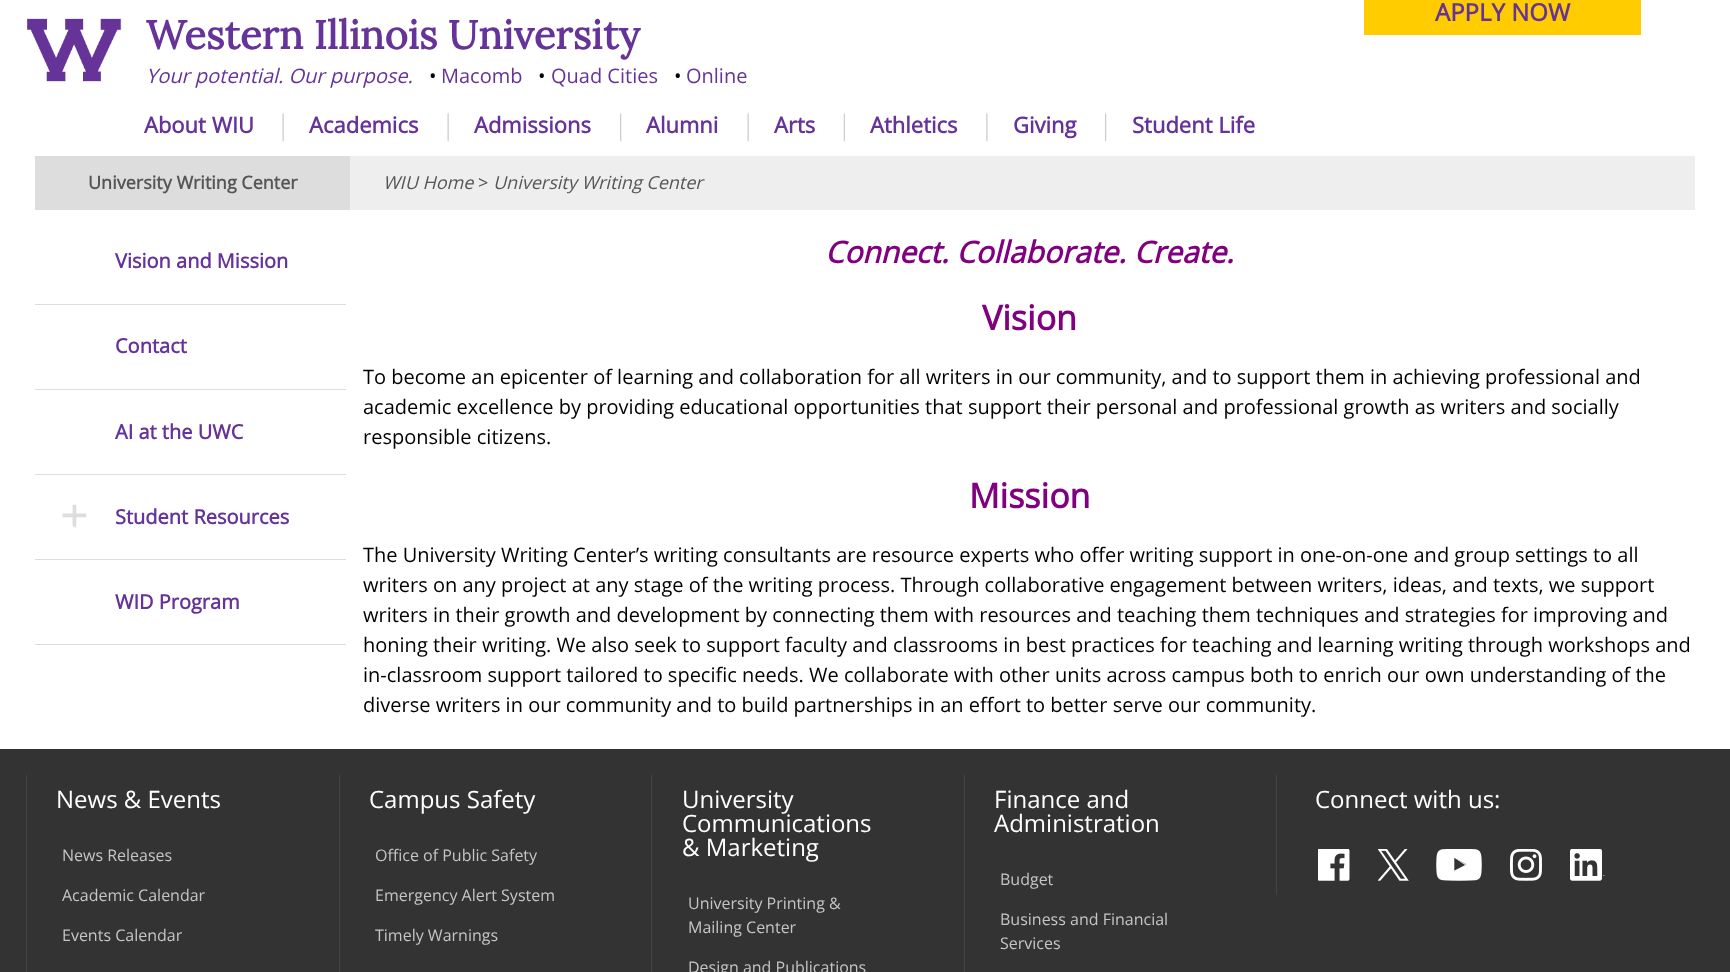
<?xml version="1.0" encoding="UTF-8"?>
<svg xmlns="http://www.w3.org/2000/svg" width="1730" height="972">
    <rect width="100%" height="100%" fill="#FFFFFF"/>
    <rect x="1364" y="0" width="277" height="35" fill="#FFCC00"/>
    <text x="1435" y="21" font-family="Open Sans" font-size="24" font-weight="700" fill="#663399">APPLY NOW</text>
    <image x="27" y="18" width="95" height="64" href="img_01.png"/>
    <text x="146" y="49" font-family="Lora" font-size="40" font-weight="700" fill="#663399">Western Illinois University</text>
    <text x="146" y="83" font-family="Open Sans" font-size="20" font-style="italic" fill="#663399">Your potential. Our purpose.</text>
    <text x="429" y="83" font-family="Open Sans" font-size="20" fill="#000000">•</text>
    <text x="441" y="83" font-family="Open Sans" font-size="20" fill="#663399">Macomb</text>
    <text x="538" y="83" font-family="Open Sans" font-size="20" fill="#000000">•</text>
    <text x="551" y="83" font-family="Open Sans" font-size="20" fill="#663399">Quad Cities</text>
    <text x="674" y="83" font-family="Open Sans" font-size="20" fill="#000000">•</text>
    <text x="686" y="83" font-family="Open Sans" font-size="20" fill="#663399">Online</text>
    <text x="144" y="133" font-family="Open Sans" font-size="22" font-weight="700" fill="#663399">About WIU</text>
    <image x="282" y="112" width="2" height="30" href="img_02.png"/>
    <text x="309" y="133" font-family="Open Sans" font-size="22" font-weight="700" fill="#663399">Academics</text>
    <image x="447" y="112" width="2" height="30" href="img_02.png"/>
    <text x="474" y="133" font-family="Open Sans" font-size="22" font-weight="700" fill="#663399">Admissions</text>
    <image x="620" y="112" width="2" height="30" href="img_03.png"/>
    <text x="646" y="133" font-family="Open Sans" font-size="22" font-weight="700" fill="#663399">Alumni</text>
    <image x="747" y="112" width="2" height="30" href="img_02.png"/>
    <text x="774" y="133" font-family="Open Sans" font-size="22" font-weight="700" fill="#663399">Arts</text>
    <image x="843" y="112" width="2" height="30" href="img_04.png"/>
    <text x="870" y="133" font-family="Open Sans" font-size="22" font-weight="700" fill="#663399">Athletics</text>
    <image x="986" y="112" width="2" height="30" href="img_05.png"/>
    <text x="1013" y="133" font-family="Open Sans" font-size="22" font-weight="700" fill="#663399">Giving</text>
    <image x="1105" y="112" width="2" height="30" href="img_03.png"/>
    <text x="1132" y="133" font-family="Open Sans" font-size="22" font-weight="700" fill="#663399">Student Life</text>
    <rect x="350" y="156" width="1345" height="54" fill="#EEEEEE"/>
    <rect x="35" y="156" width="315" height="54" fill="#DDDDDD"/>
    <text x="88" y="189" font-family="Open Sans" font-size="18" font-weight="700" fill="#565656">University Writing Center</text>
    <text x="383" y="189" font-family="Open Sans" font-size="18" font-style="italic" fill="#565656">WIU Home</text>
    <text x="478" y="189" font-family="Open Sans" font-size="18" fill="#565656">&gt;</text>
    <text x="493" y="189" font-family="Open Sans" font-size="18" font-style="italic" fill="#565656">University Writing Center</text>
    <rect x="35" y="304" width="311" height="1" fill="#DDDDDD"/>
    <text x="115" y="268" font-family="Open Sans" font-size="20" font-weight="700" fill="#663399">Vision and Mission</text>
    <rect x="35" y="389" width="311" height="1" fill="#DDDDDD"/>
    <text x="115" y="353" font-family="Open Sans" font-size="20" font-weight="700" fill="#663399">Contact</text>
    <rect x="35" y="474" width="311" height="1" fill="#DDDDDD"/>
    <text x="115" y="439" font-family="Open Sans" font-size="20" font-weight="700" fill="#663399">AI at the UWC</text>
    <rect x="35" y="559" width="311" height="1" fill="#DDDDDD"/>
    <image x="62" y="504" width="25" height="24" href="img_06.png"/>
    <text x="115" y="524" font-family="Open Sans" font-size="20" font-weight="700" fill="#663399">Student Resources</text>
    <rect x="35" y="644" width="311" height="1" fill="#DDDDDD"/>
    <text x="115" y="609" font-family="Open Sans" font-size="20" font-weight="700" fill="#663399">WID Program</text>
    <text x="825" y="263" font-family="Open Sans" font-size="30" font-weight="700" font-style="italic" fill="#800080">Connect. Collaborate. Create.</text>
    <text x="982" y="330" font-family="Open Sans" font-size="34" font-weight="700" fill="#800080">Vision</text>
    <text font-family="Open Sans" font-size="20" fill="#000000">
        <tspan x="363" y="384">To become an epicenter of learning and collaboration for all writers in our community, and to support them in achieving professional and</tspan>
        <tspan x="363" y="414">academic excellence by providing educational opportunities that support their personal and professional growth as writers and socially</tspan>
        <tspan x="363" y="444">responsible citizens.</tspan>
    </text>
    <text x="969" y="508" font-family="Open Sans" font-size="34" font-weight="700" fill="#800080">Mission</text>
    <text font-family="Open Sans" font-size="20" fill="#000000">
        <tspan x="363" y="562">The University Writing Center’s writing consultants are resource experts who offer writing support in one-on-one and group settings to all</tspan>
        <tspan x="363" y="592">writers on any project at any stage of the writing process. Through collaborative engagement between writers, ideas, and texts, we support</tspan>
        <tspan x="363" y="622">writers in their growth and development by connecting them with resources and teaching them techniques and strategies for improving and</tspan>
        <tspan x="363" y="652">honing their writing. We also seek to support faculty and classrooms in best practices for teaching and learning writing through workshops and</tspan>
        <tspan x="363" y="682">in-classroom support tailored to specific needs. We collaborate with other units across campus both to enrich our own understanding of the</tspan>
        <tspan x="363" y="712">diverse writers in our community and to build partnerships in an effort to better serve our community.</tspan>
    </text>
    <rect x="0" y="749" width="1730" height="223" fill="#333333"/>
    <rect x="26" y="775" width="1" height="197" fill="#444444"/>
    <text x="56" y="808" font-family="Open Sans" font-size="24" fill="#FFFFFF">News &amp; Events</text>
    <text x="62" y="861" font-family="Open Sans" font-size="16" fill="#C5C5C5">News Releases</text>
    <text x="62" y="901" font-family="Open Sans" font-size="16" fill="#C5C5C5">Academic Calendar</text>
    <text x="62" y="941" font-family="Open Sans" font-size="16" fill="#C5C5C5">Events Calendar</text>
    <rect x="339" y="775" width="1" height="197" fill="#444444"/>
    <text x="369" y="808" font-family="Open Sans" font-size="24" fill="#FFFFFF">Campus Safety</text>
    <text x="375" y="861" font-family="Open Sans" font-size="16" fill="#C5C5C5">Office of Public Safety</text>
    <text x="375" y="901" font-family="Open Sans" font-size="16" fill="#C5C5C5">Emergency Alert System</text>
    <text x="375" y="941" font-family="Open Sans" font-size="16" fill="#C5C5C5">Timely Warnings</text>
    <rect x="651" y="775" width="1" height="197" fill="#444444"/>
    <text font-family="Open Sans" font-size="24" fill="#FFFFFF">
        <tspan x="682" y="808">University</tspan>
        <tspan x="682" y="832">Communications</tspan>
        <tspan x="682" y="856">&amp; Marketing</tspan>
    </text>
    <text font-family="Open Sans" font-size="16" fill="#C5C5C5">
        <tspan x="688" y="909">University Printing &amp;</tspan>
        <tspan x="688" y="933">Mailing Center</tspan>
    </text>
    <text x="688" y="973" font-family="Open Sans" font-size="16" fill="#C5C5C5">Design and Publications</text>
    <rect x="964" y="775" width="1" height="197" fill="#444444"/>
    <text font-family="Open Sans" font-size="24" fill="#FFFFFF">
        <tspan x="994" y="808">Finance and</tspan>
        <tspan x="994" y="832">Administration</tspan>
    </text>
    <text x="1000" y="885" font-family="Open Sans" font-size="16" fill="#C5C5C5">Budget</text>
    <text font-family="Open Sans" font-size="16" fill="#C5C5C5">
        <tspan x="1000" y="925">Business and Financial</tspan>
        <tspan x="1000" y="949">Services</tspan>
    </text>
    <rect x="1276" y="775" width="1" height="120" fill="#444444"/>
    <text x="1315" y="808" font-family="Open Sans" font-size="24" fill="#FFFFFF">Connect with us:</text>
    <image x="1318" y="849" width="32" height="32" href="img_07.png"/>
    <image x="1378" y="849" width="31" height="32" href="img_08.png"/>
    <image x="1436" y="849" width="46" height="32" href="img_09.png"/>
    <image x="1510" y="849" width="32" height="32" href="img_10.png"/>
    <image x="1570" y="849" width="35" height="32" href="img_11.png"/>
</svg>
